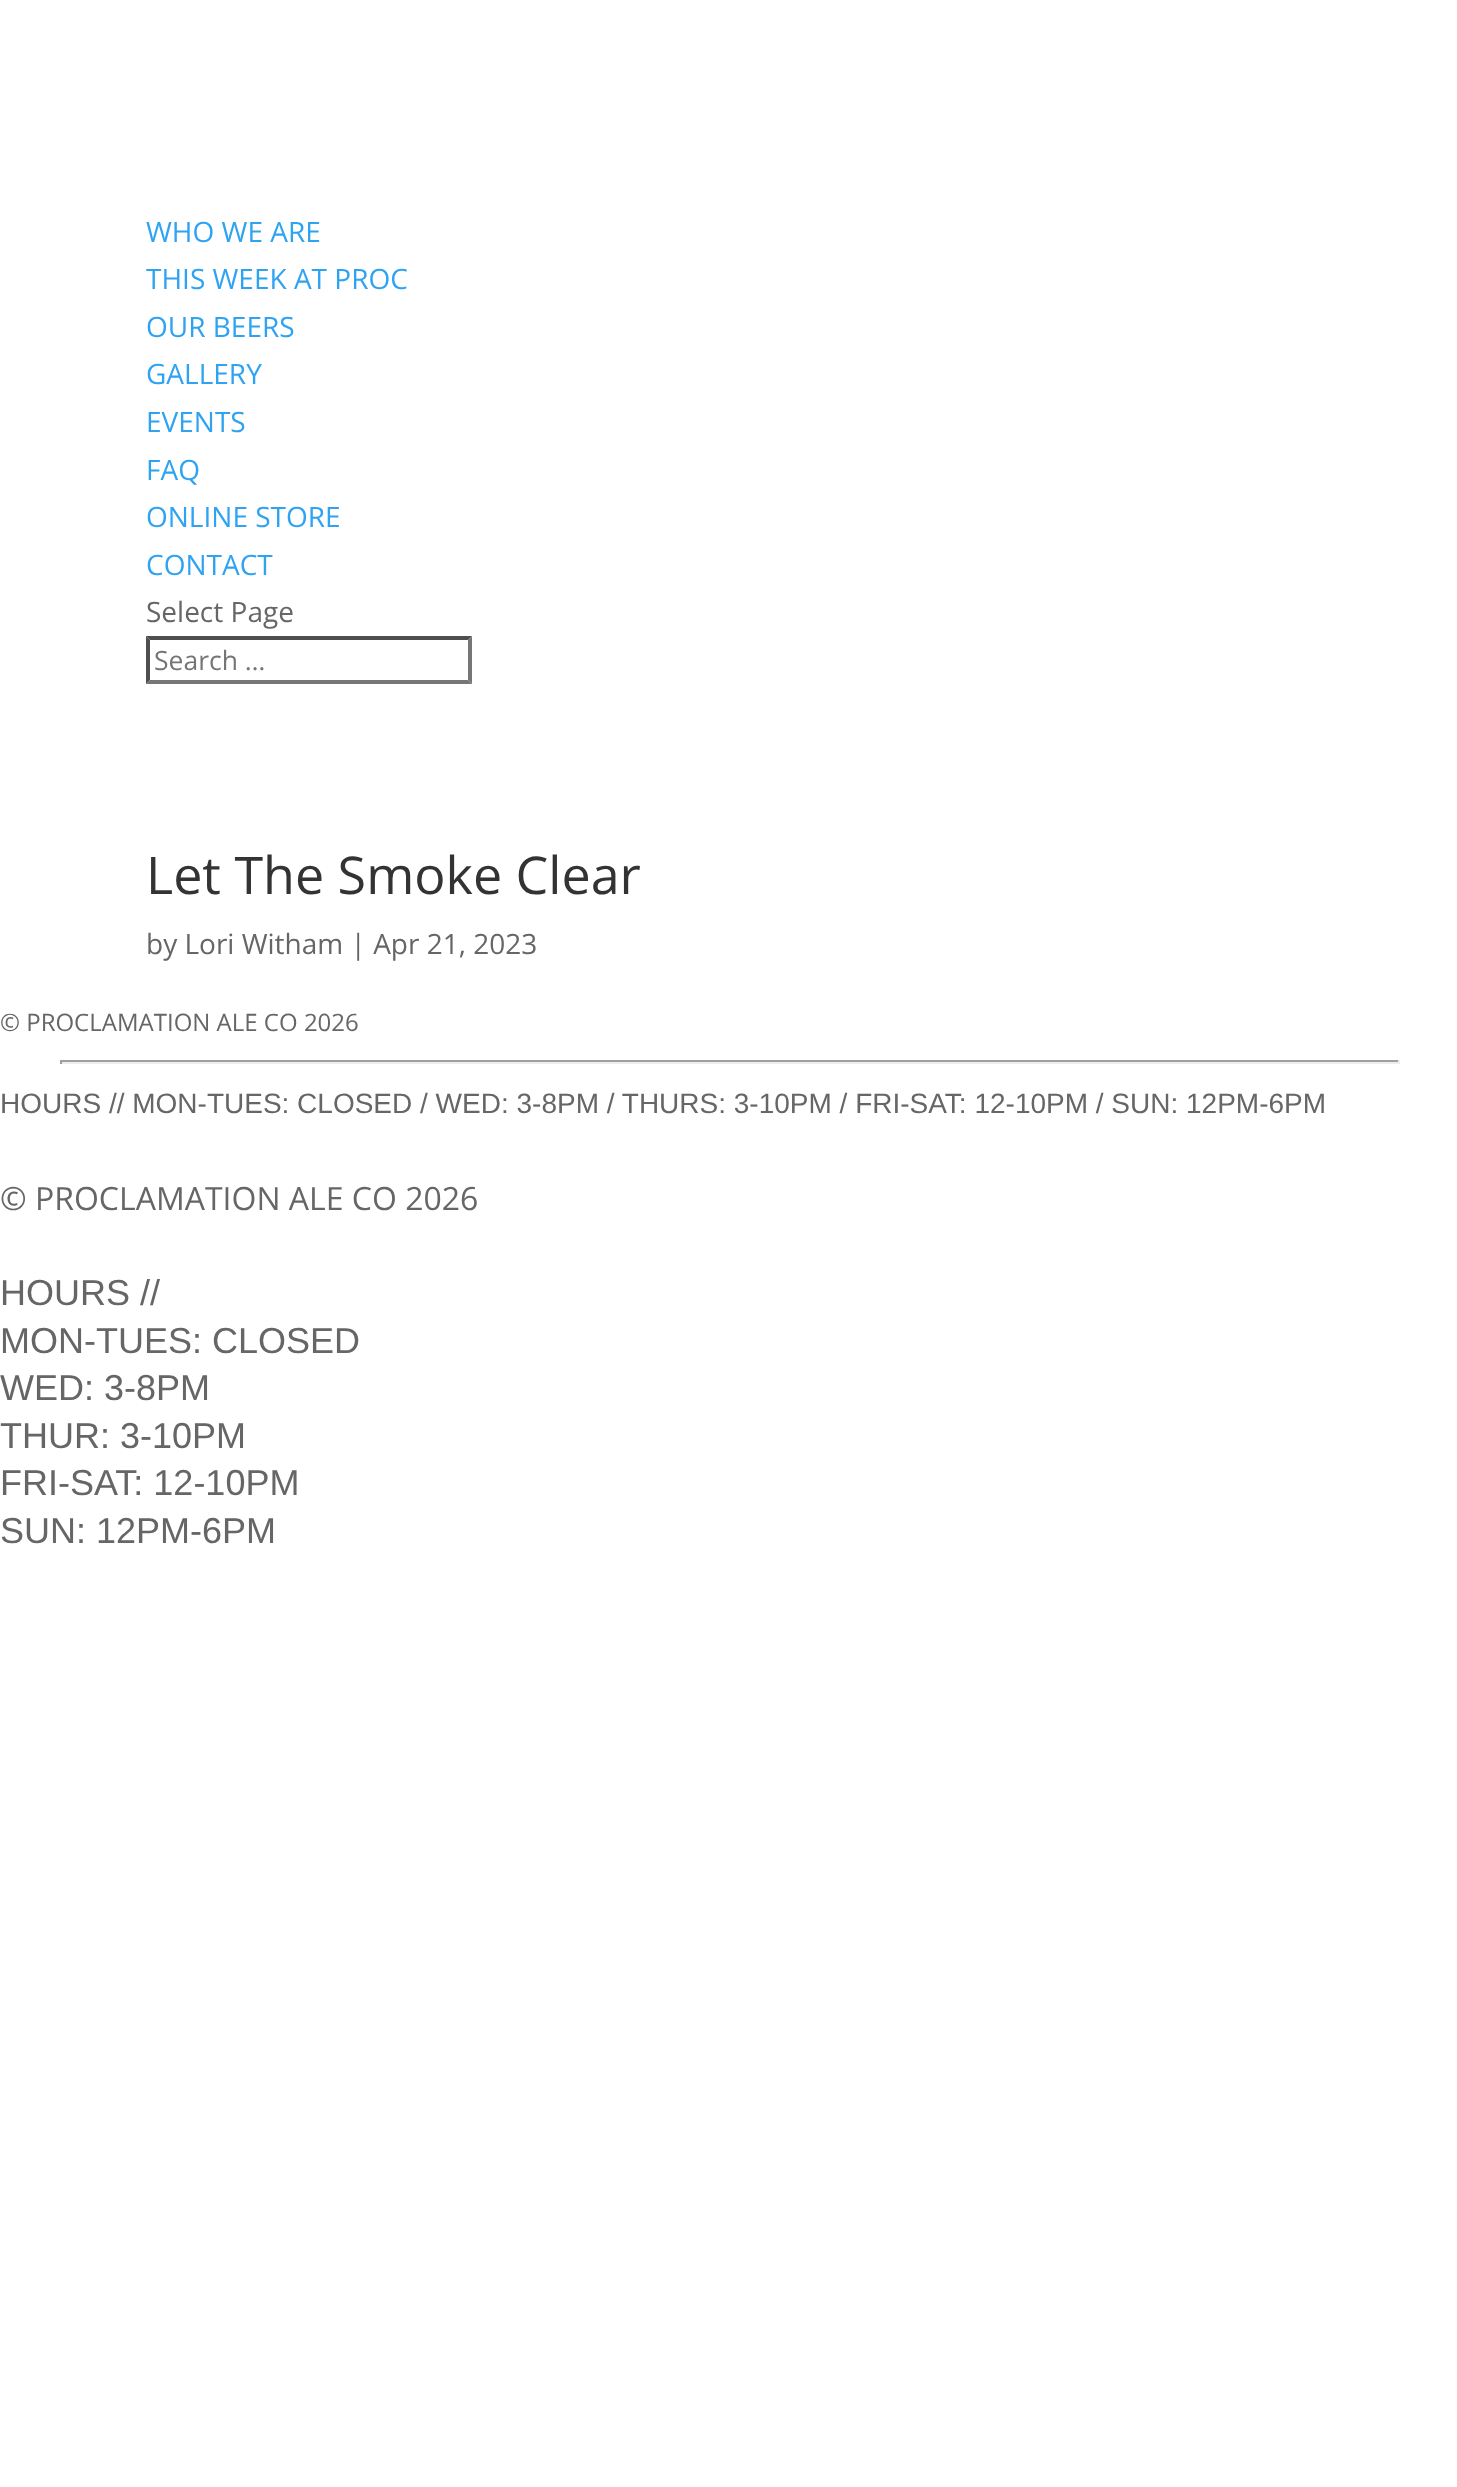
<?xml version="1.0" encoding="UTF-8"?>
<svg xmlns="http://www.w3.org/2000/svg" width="1457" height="2487">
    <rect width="100%" height="100%" fill="#FFFFFF"/>
    <text font-family="Open Sans" font-size="28" fill="#2EA3F2">
        <tspan x="146" y="242">WHO WE ARE</tspan>
        <tspan x="146" y="289">THIS WEEK AT PROC</tspan>
        <tspan x="146" y="337">OUR BEERS</tspan>
        <tspan x="146" y="384">GALLERY</tspan>
        <tspan x="146" y="432">EVENTS</tspan>
        <tspan x="146" y="480">FAQ</tspan>
        <tspan x="146" y="527">ONLINE STORE</tspan>
        <tspan x="146" y="575">CONTACT</tspan>
    </text>
    <text x="146" y="622" font-family="Open Sans" font-size="28" fill="#666666">Select Page</text>
    <path d="M 146 636 H 472 L 468 640 H 150 Z" fill="#4F4F4F"/>
    <path d="M 472 636 V 684 L 468 680 V 640 Z" fill="#767676"/>
    <path d="M 472 684 H 146 L 150 680 H 468 Z" fill="#767676"/>
    <path d="M 146 684 V 636 L 150 640 V 680 Z" fill="#4F4F4F"/>
    <text x="154" y="670" font-family="Open Sans" font-size="26.5" fill="#757575">Search …</text>
    <text x="146" y="894" font-family="Open Sans" font-size="52" fill="#333333">Let The Smoke Clear</text>
    <text x="146" y="954" font-family="Open Sans" font-size="28" fill="#666666">by Lori Witham | Apr 21, 2023</text>
    <text x="0" y="1031" font-family="Open Sans" font-size="24" fill="#666666">© PROCLAMATION ALE CO 2026</text>
    <rect x="60" y="1060" width="1340" height="2" fill="#9F9F9F"/>
    <rect x="1398" y="1060" width="2" height="4" fill="#EEEEEE"/>
    <rect x="60" y="1062" width="1340" height="2" fill="#EEEEEE"/>
    <rect x="60" y="1060" width="2" height="4" fill="#9F9F9F"/>
    <text x="0" y="1113" font-family="Liberation Sans" font-size="28" fill="#666666">HOURS // MON-TUES: CLOSED / WED: 3-8PM / THURS: 3-10PM / FRI-SAT: 12-10PM / SUN: 12PM-6PM</text>
    <text x="0" y="1210" font-family="Open Sans" font-size="32" fill="#666666">© PROCLAMATION ALE CO 2026</text>
    <text font-family="Liberation Sans" font-size="36" fill="#666666">
        <tspan x="0" y="1305">HOURS //</tspan>
        <tspan x="0" y="1353">MON-TUES: CLOSED</tspan>
        <tspan x="0" y="1400">WED: 3-8PM</tspan>
        <tspan x="0" y="1448">THUR: 3-10PM</tspan>
        <tspan x="0" y="1495">FRI-SAT: 12-10PM</tspan>
        <tspan x="0" y="1543">SUN: 12PM-6PM</tspan>
    </text>
</svg>
